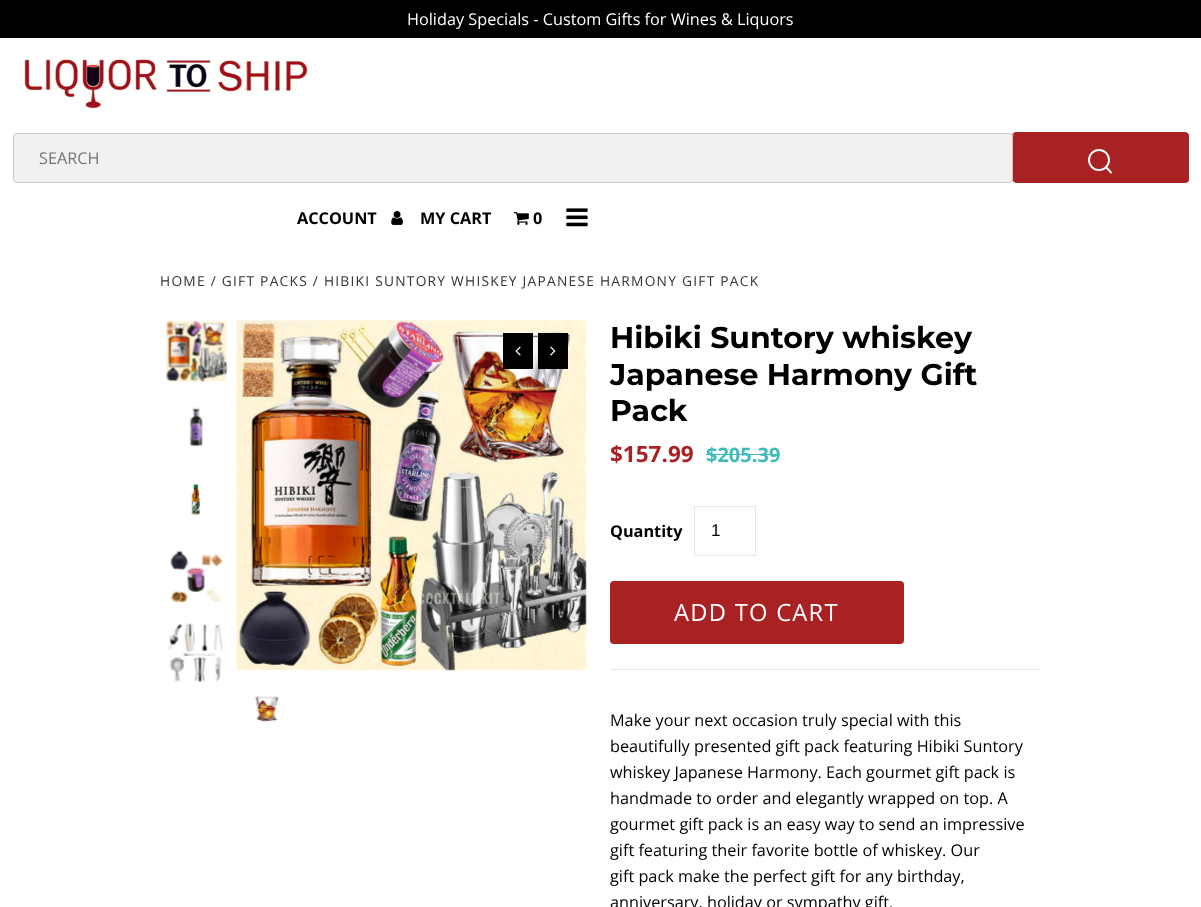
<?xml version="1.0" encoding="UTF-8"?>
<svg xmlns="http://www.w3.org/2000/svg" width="1201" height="907">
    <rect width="100%" height="100%" fill="#FFFFFF"/>
    <rect x="0" y="0" width="1201" height="38" fill="#000000"/>
    <text x="407" y="25" font-family="Open Sans" font-size="16.25" fill="#FFFFFF">Holiday Specials - Custom Gifts for Wines &amp; Liquors</text>
    <image x="23" y="58" width="288" height="51" href="img_01.png"/>
    <rect x="13.5" y="133.5" width="999" height="49" rx="3.5" fill="#F1F1F1" stroke="#CBC9C9"/>
    <text x="39" y="164" font-family="Open Sans" font-size="16.25" fill="#757575">SEARCH</text>
    <rect x="1013" y="133" width="176" height="50" rx="4" fill="#A82123"/>
    <path d="M 1016 132 H 1185 C 1187 132 1189 134 1189 136 V 179 C 1189 181 1187 182 1185 182 H 1016 C 1014 182 1012 181 1012 179 V 136 C 1012 134 1014 132 1016 132 Z M 1016 134 H 1185 C 1186 134 1188 135 1188 136 V 179 C 1188 180 1186 181 1185 181 H 1016 C 1014 181 1012 180 1012 179 V 136 C 1012 135 1014 134 1016 134 Z" fill="#A82123" fill-rule="evenodd"/>
    <circle cx="1099" cy="160" r="10" fill="none" stroke="#FFFFFF" stroke-width="1.9"/>
    <path d="M 1111 172.5 L 1106 167" fill="none" stroke="#FFFFFF" stroke-width="1.9" stroke-linecap="round" stroke-linejoin="round"/>
    <text x="297" y="224" font-family="Open Sans" font-size="16.25" font-weight="700" fill="#000000">ACCOUNT</text>
    <image x="391" y="211" width="12" height="14" href="img_02.png"/>
    <text x="420" y="224" font-family="Open Sans" font-size="16.25" font-weight="700" fill="#000000">MY CART</text>
    <image x="513" y="212" width="16" height="13" href="img_03.png"/>
    <text x="533" y="224" font-family="Open Sans" font-size="16.25" font-weight="700" fill="#000000">0</text>
    <image x="566" y="208" width="22" height="19" href="img_04.png"/>
    <text x="160" y="286" font-family="Open Sans" font-size="13.75" letter-spacing="1.25" fill="#333333">HOME / GIFT PACKS / HIBIKI SUNTORY WHISKEY JAPANESE HARMONY GIFT PACK</text>
    <image x="165" y="320" width="62" height="62" href="img_05.png"/>
    <image x="189" y="407" width="14" height="40" href="img_06.png"/>
    <image x="191" y="483" width="9" height="32" href="img_07.png"/>
    <image x="170" y="550" width="53" height="53" href="img_08.png"/>
    <image x="168" y="623" width="55" height="59" href="img_09.png"/>
    <image x="254" y="696" width="25" height="26" href="img_10.png"/>
    <image x="236" y="319" width="351" height="352" href="img_11.png"/>
    <rect x="503" y="333" width="30" height="36" fill="#000000"/>
    <image x="515" y="346" width="6" height="10" href="img_12.png"/>
    <rect x="538" y="333" width="30" height="36" fill="#000000"/>
    <image x="550" y="346" width="6" height="10" href="img_13.png"/>
    <text font-family="Montserrat" font-size="30" font-weight="700" fill="#000000">
        <tspan x="610" y="348">Hibiki Suntory whiskey</tspan>
        <tspan x="610" y="385">Japanese Harmony Gift</tspan>
        <tspan x="610" y="421">Pack</tspan>
    </text>
    <text x="610" y="462" font-family="Open Sans" font-size="22.5" font-weight="700" fill="#A82123">$157.99</text>
    <text x="706" y="462" font-family="Open Sans" font-size="20" font-weight="700" fill="#41BABA">$205.39</text>
    <rect x="706" y="454" width="74" height="1" fill="#41BABA"/>
    <rect x="610" y="669" width="431" height="1" fill="#E5E5E5"/>
    <text x="610" y="537" font-family="Open Sans" font-size="16.25" font-weight="700" fill="#000000">Quantity</text>
    <rect x="694.5" y="506.5" width="61" height="49" fill="none" stroke="#E5E5E5"/>
    <text x="711" y="536" font-family="Liberation Sans" font-size="17" fill="#000000">1</text>
    <rect x="610" y="581" width="294" height="63" rx="4" fill="#A82123"/>
    <text x="674" y="621" font-family="Open Sans" font-size="23.75" letter-spacing="1.25" fill="#FFFFFF">ADD TO CART</text>
    <text font-family="Open Sans" font-size="16.25" fill="#000000">
        <tspan x="610" y="726">Make your next occasion truly special with this</tspan>
        <tspan x="610" y="752">beautifully presented gift pack featuring Hibiki Suntory</tspan>
        <tspan x="610" y="778">whiskey Japanese Harmony. Each gourmet gift pack is</tspan>
        <tspan x="610" y="804">handmade to order and elegantly wrapped on top. A</tspan>
        <tspan x="610" y="830">gourmet gift pack is an easy way to send an impressive</tspan>
        <tspan x="610" y="856">gift featuring their favorite bottle of whiskey. Our</tspan>
        <tspan x="610" y="882">gift pack make the perfect gift for any birthday,</tspan>
        <tspan x="610" y="908">anniversary, holiday or sympathy gift.</tspan>
    </text>
</svg>
